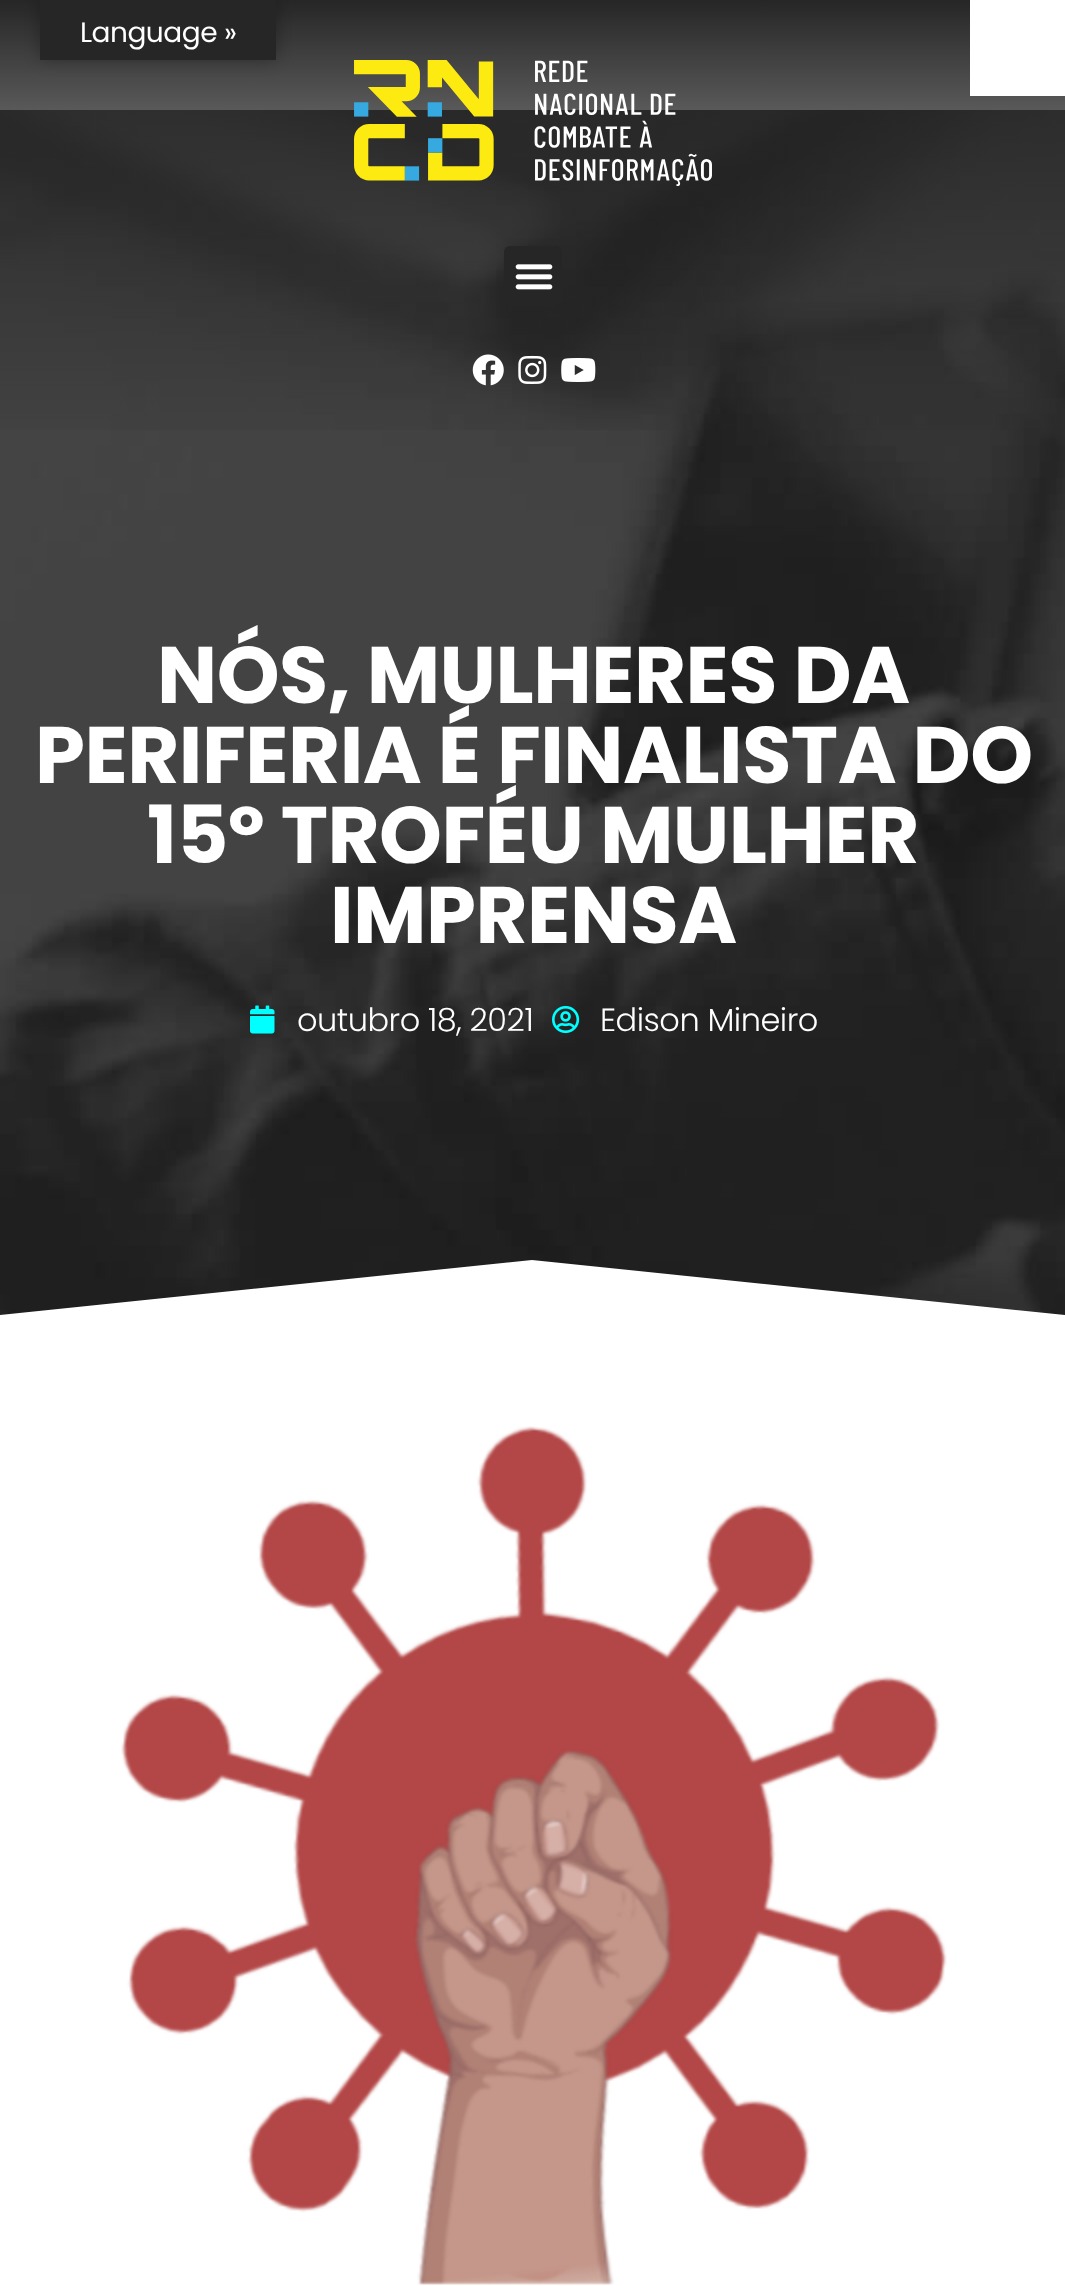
<?xml version="1.0" encoding="UTF-8"?>
<svg xmlns="http://www.w3.org/2000/svg" width="1065" height="2286">
    <defs>
        <linearGradient id="g1" gradientUnits="userSpaceOnUse" x1="533" y1="470" x2="533" y2="0"><stop offset="0" stop-color="#262626" stop-opacity="0"/><stop offset="1" stop-color="#262626"/></linearGradient>
        <filter id="blur1" x="-50%" y="-200%" width="200%" height="500%"><feGaussianBlur stdDeviation="9"/></filter>
        <clipPath id="clip1"><rect x="0" y="1258" width="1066" height="60"/></clipPath>
    </defs>
    <rect width="100%" height="100%" fill="#FFFFFF"/>
    <image x="0" y="110" width="1065" height="1205" href="img_06.png"/>
    <rect x="0" y="0" width="1065" height="430" fill="url(#g1)"/>
    <image x="354" y="60" width="358" height="126" href="img_01.png"/>
    <rect x="504" y="246" width="58" height="60" rx="6" fill="#262626"/>
    <image x="515" y="264" width="38" height="26" href="img_02.png"/>
    <image x="472" y="354" width="32" height="32" href="img_03.png"/>
    <image x="518" y="355" width="29" height="29" href="img_04.png"/>
    <image x="561" y="358" width="35" height="24" href="img_05.png"/>
    <rect x="40" y="0" width="236" height="60" fill="#000000" fill-opacity="0.3" filter="url(#blur1)"/>
    <rect x="40" y="0" width="236" height="60" fill="#262626"/>
    <text x="80" y="42" font-family="Poppins" font-size="28" letter-spacing="-0.5" fill="#FFFFFF">Language »</text>
    <rect x="970" y="0" width="95" height="96" fill="#FFFFFF"/>
    <text x="157" y="703" font-family="Poppins" font-size="80" font-weight="700" letter-spacing="-0.5" fill="#FFFFFF">NÓS, MULHERES DA</text>
    <text x="35" y="783" font-family="Poppins" font-size="80" font-weight="700" letter-spacing="-0.5" fill="#FFFFFF">PERIFERIA É FINALISTA DO</text>
    <text x="147" y="863" font-family="Poppins" font-size="80" font-weight="700" letter-spacing="-0.5" fill="#FFFFFF">15º TROFÉU MULHER</text>
    <text x="330" y="943" font-family="Poppins" font-size="80" font-weight="700" letter-spacing="-0.5" fill="#FFFFFF">IMPRENSA</text>
    <image x="250" y="1005" width="25" height="29" href="img_07.png"/>
    <text x="297" y="1031" font-family="Poppins" font-size="32" font-weight="300" letter-spacing="-0.5" fill="#FFFFFF">outubro 18, 2021</text>
    <image x="552" y="1005" width="28" height="29" href="img_08.png"/>
    <text x="600" y="1031" font-family="Poppins" font-size="32" font-weight="300" letter-spacing="-0.5" fill="#FFFFFF">Edison Mineiro</text>
    <g clip-path="url(#clip1)">
        <path d="M 532 1260 L 1065 1315 V 1319 H -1 V 1315 Z" fill="#FFFFFF"/>
    </g>
    <image x="121" y="1426" width="826" height="859" href="img_09.png"/>
</svg>
